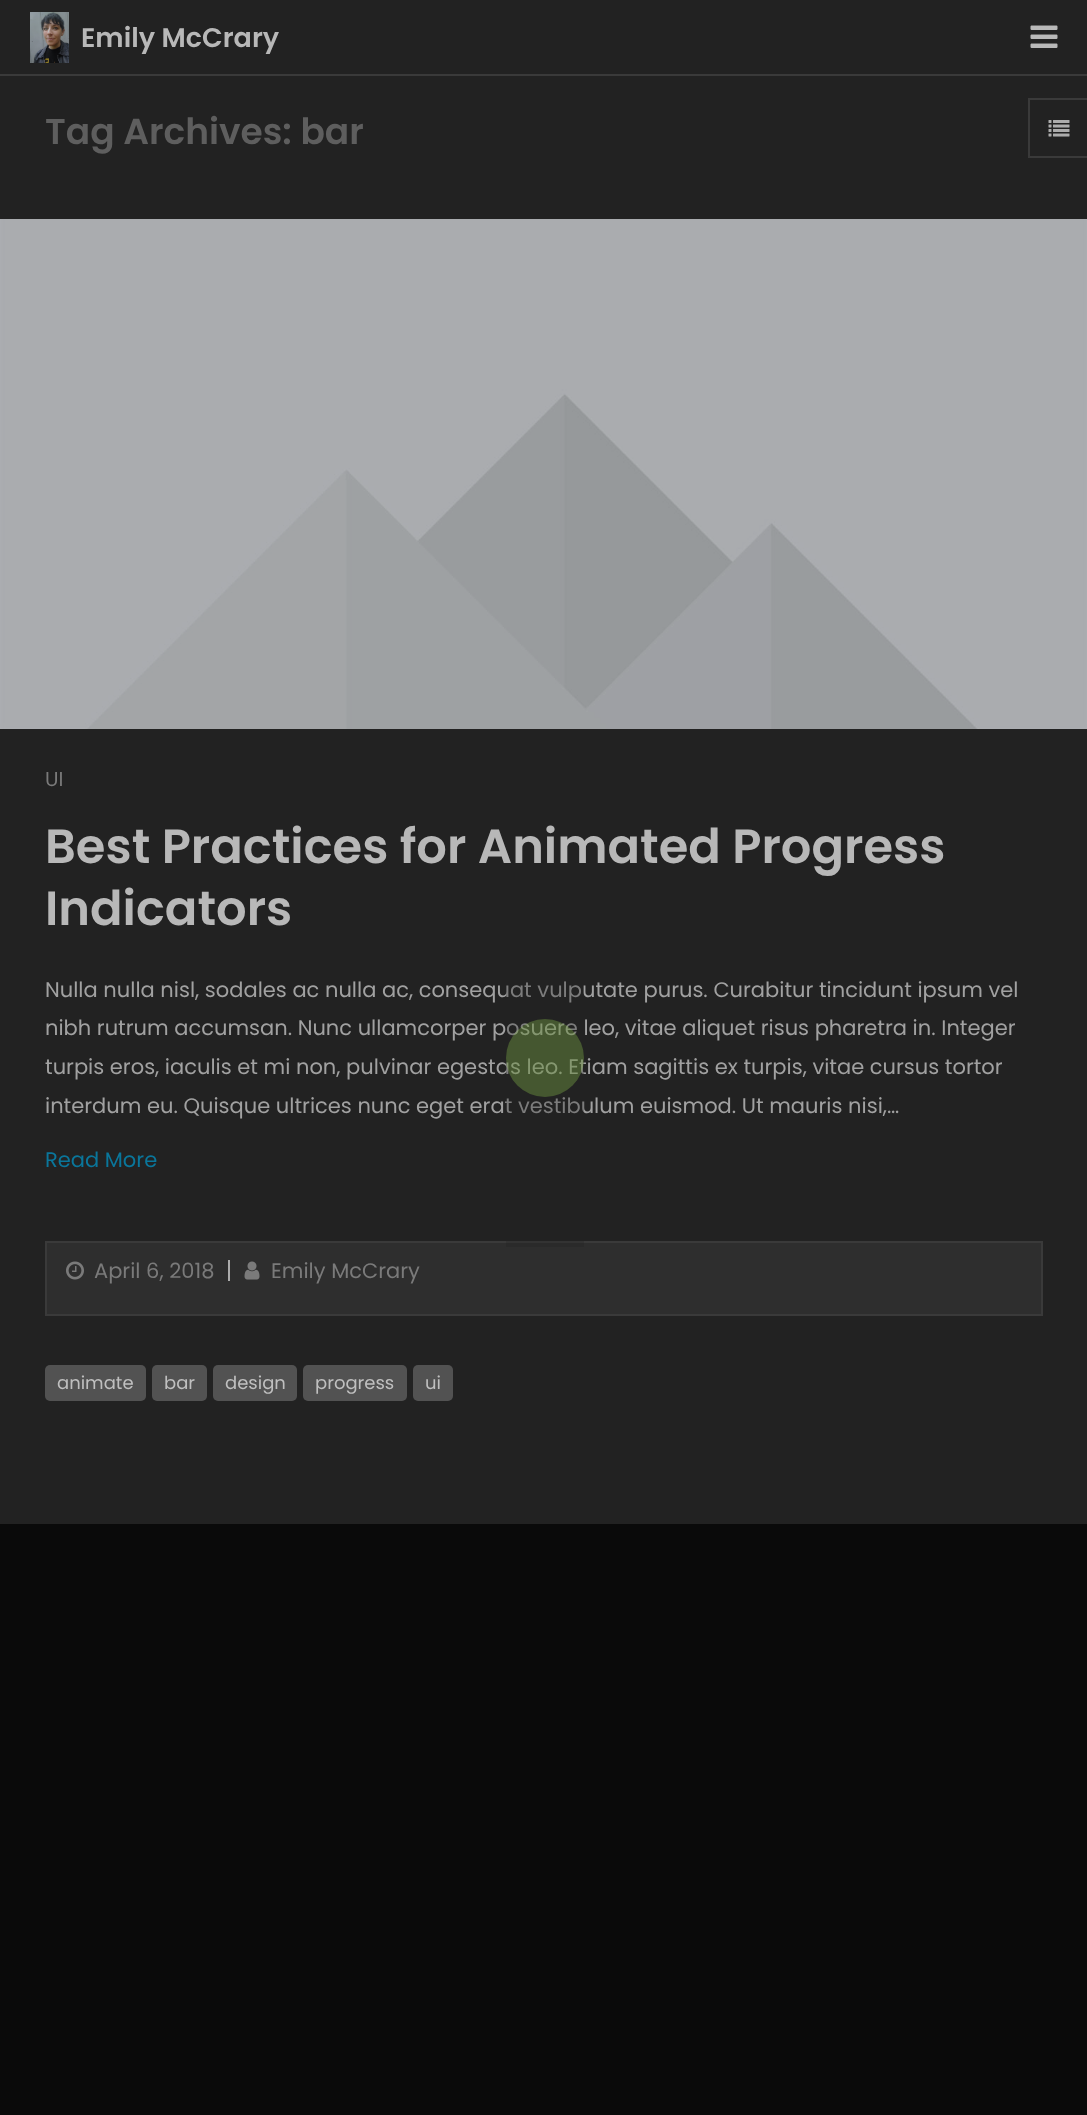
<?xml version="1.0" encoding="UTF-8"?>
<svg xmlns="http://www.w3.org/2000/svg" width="1087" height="2115">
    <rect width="100%" height="100%" fill="#0A0A0A"/>
    <rect x="0" y="0" width="1087" height="74" fill="#222222"/>
    <rect x="0" y="74" width="1087" height="2" fill="#3A3A3A"/>
    <image x="30" y="12" width="39" height="51" href="img_01.png"/>
    <text x="81" y="47" font-family="Poppins" font-size="27" font-weight="600" fill="#B8B8B8">Emily McCrary</text>
    <image x="1030" y="25" width="28" height="23" href="img_02.png"/>
    <rect x="0" y="76" width="1087" height="1448" fill="#222222"/>
    <text x="45" y="144" font-family="Poppins" font-size="36" font-weight="600" fill="#5E5E5E">Tag Archives: bar</text>
    <image x="0" y="219" width="1087" height="510" href="img_03.png"/>
    <text x="45" y="786" font-family="Poppins" font-size="20" fill="#7A7A7A">UI</text>
    <text font-family="Poppins" font-size="48" font-weight="600" fill="#B8B8B8">
        <tspan x="45" y="863">Best Practices for Animated Progress</tspan>
        <tspan x="45" y="925">Indicators</tspan>
    </text>
    <text font-family="Poppins" font-size="21" fill="#A1A1A1">
        <tspan x="45" y="997">Nulla nulla nisl, sodales ac nulla ac, consequat vulputate purus. Curabitur tincidunt ipsum vel</tspan>
        <tspan x="45" y="1035">nibh rutrum accumsan. Nunc ullamcorper posuere leo, vitae aliquet risus pharetra in. Integer</tspan>
        <tspan x="45" y="1074">turpis eros, iaculis et mi non, pulvinar egestas leo. Etiam sagittis ex turpis, vitae cursus tortor</tspan>
        <tspan x="45" y="1113">interdum eu. Quisque ultrices nunc eget erat vestibulum euismod. Ut mauris nisi,…</tspan>
    </text>
    <text x="45" y="1167" font-family="Poppins" font-size="21" fill="#0A769B">Read More</text>
    <rect x="46" y="1242" width="996" height="73" fill="#2E2E2E" stroke="#3A3A3A" stroke-width="2"/>
    <image x="66" y="1261" width="18" height="19" href="img_04.png"/>
    <text x="94" y="1278" font-family="Poppins" font-size="21" fill="#7A7A7A">April 6, 2018</text>
    <rect x="228" y="1260" width="2" height="21" fill="#ACACAC"/>
    <image x="244" y="1261" width="16" height="19" href="img_05.png"/>
    <text x="271" y="1278" font-family="Poppins" font-size="21" fill="#7A7A7A">Emily McCrary</text>
    <rect x="45" y="1365" width="101" height="36" rx="5" fill="#525252"/>
    <text x="57" y="1389" font-family="Poppins" font-size="18" fill="#BFBFBF">animate</text>
    <rect x="152" y="1365" width="55" height="36" rx="5" fill="#525252"/>
    <text x="164" y="1389" font-family="Poppins" font-size="18" fill="#BFBFBF">bar</text>
    <rect x="213" y="1365" width="84" height="36" rx="5" fill="#525252"/>
    <text x="225" y="1389" font-family="Poppins" font-size="18" fill="#BFBFBF">design</text>
    <rect x="303" y="1365" width="104" height="36" rx="5" fill="#525252"/>
    <text x="315" y="1389" font-family="Poppins" font-size="18" fill="#BFBFBF">progress</text>
    <rect x="413" y="1365" width="40" height="36" rx="5" fill="#525252"/>
    <text x="425" y="1389" font-family="Poppins" font-size="18" fill="#BFBFBF">ui</text>
    <rect x="1028" y="98" width="59" height="2" fill="#3A3A3A"/>
    <rect x="1028" y="156" width="59" height="2" fill="#3A3A3A"/>
    <rect x="1028" y="98" width="2" height="60" fill="#3A3A3A"/>
    <image x="1048" y="120" width="22" height="17" href="img_06.png"/>
    <rect x="506" y="981" width="78" height="266" fill="#222222" fill-opacity="0.29"/>
    <circle cx="545" cy="1058" r="39" fill="#9BD952" fill-opacity="0.29"/>
</svg>
